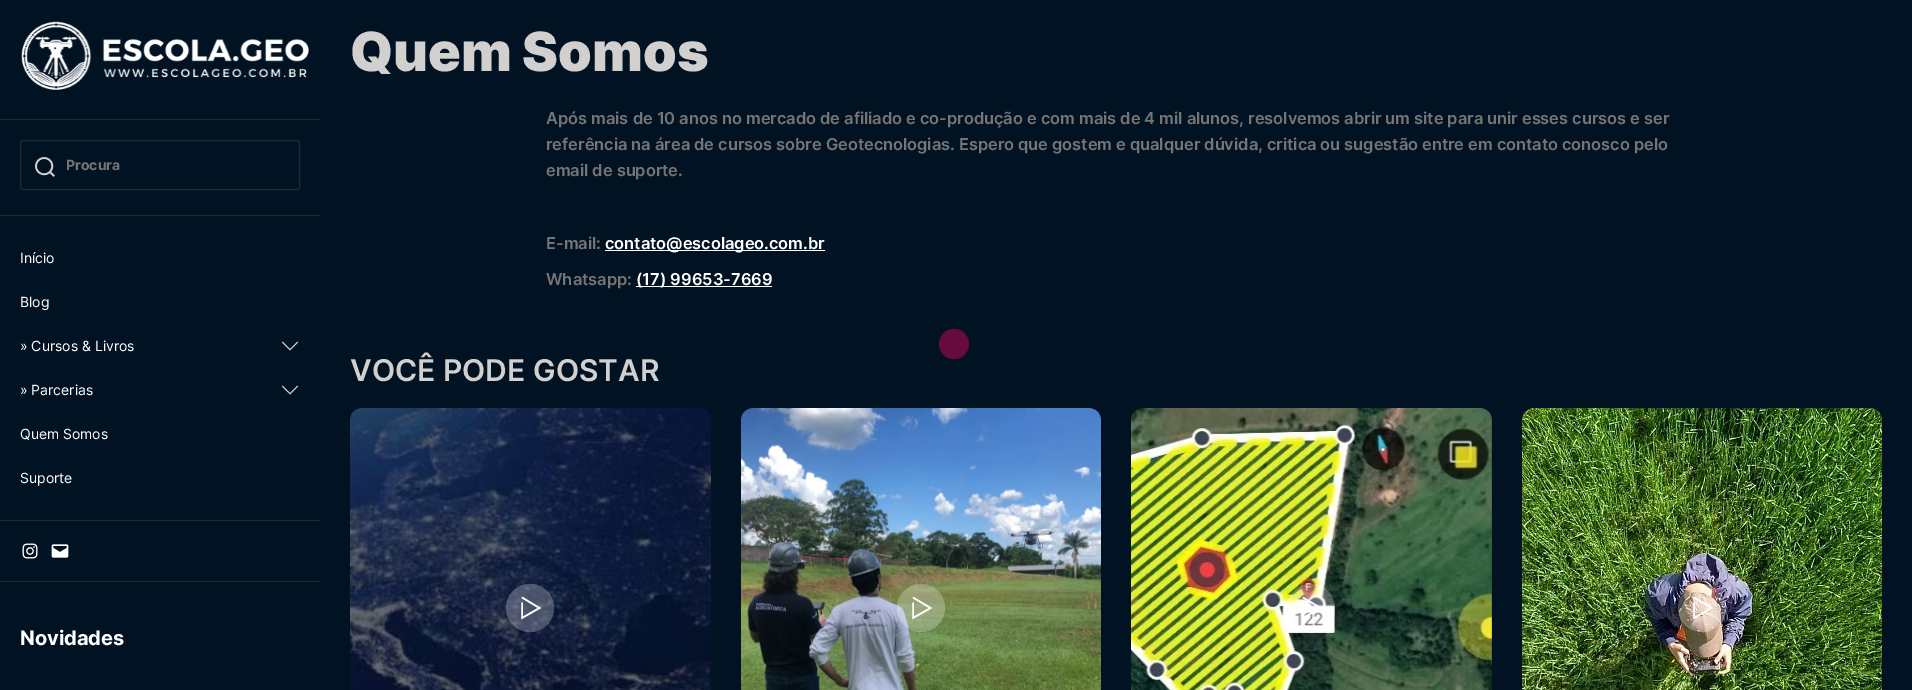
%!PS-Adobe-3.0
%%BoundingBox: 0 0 1912 690
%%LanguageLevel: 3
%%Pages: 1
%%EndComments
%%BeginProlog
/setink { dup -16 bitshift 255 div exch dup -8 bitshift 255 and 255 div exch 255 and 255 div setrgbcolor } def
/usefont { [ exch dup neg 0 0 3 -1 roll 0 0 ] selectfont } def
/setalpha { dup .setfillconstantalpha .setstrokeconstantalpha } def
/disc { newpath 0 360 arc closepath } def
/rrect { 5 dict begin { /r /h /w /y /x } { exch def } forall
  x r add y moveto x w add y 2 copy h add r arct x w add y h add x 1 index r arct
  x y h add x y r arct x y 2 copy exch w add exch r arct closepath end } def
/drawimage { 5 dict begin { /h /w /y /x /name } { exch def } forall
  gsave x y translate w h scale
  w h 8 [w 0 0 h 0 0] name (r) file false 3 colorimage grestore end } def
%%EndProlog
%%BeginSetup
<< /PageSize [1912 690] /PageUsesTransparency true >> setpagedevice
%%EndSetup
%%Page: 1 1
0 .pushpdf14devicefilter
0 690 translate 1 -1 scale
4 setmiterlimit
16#011323 setink
0 0 1912 690 rectfill
16#1A2B39 setink
0 119 320 1 rectfill
(img1.raw) 21 21 288 69 drawimage
0 215 320 1 rectfill
20.5 140.5 279 49 2.5 rrect stroke
(img2.raw) 35 157 20 20 drawimage
/Inter-Bold 14 usefont
16#757575 setink
66 170 moveto (Procura) show
16#1A2B39 setink
0 520 320 1 rectfill
/Inter-Regular 14 usefont
16#FFFFFF setink
[
    [(Início) 20 263]
    [(Blog) 20 307]
    [(» Cursos & Livros) 20 351]
] { aload pop moveto show } forall
(img3.raw) 281 341 18 10 drawimage
20 395 moveto (» Parcerias) show
(img3.raw) 281 385 18 10 drawimage
20 439 moveto (Quem Somos) show
20 483 moveto (Suporte) show
16#1A2B39 setink
0 581 320 1 rectfill
(img4.raw) 22 543 16 16 drawimage
(img5.raw) 51 544 18 14 drawimage
/Inter-Bold 20 usefont
16#FFFFFF setink
20 645 moveto (Novidades) show
/Inter-Black 54 usefont
16#D1D0CF setink
350 71 moveto (Quem Somos) show
/Inter-SemiBold 16.38 usefont
16#757575 setink
[
    [(Após mais de 10 anos no mercado de afiliado e co-produção e com mais de 4 mil alunos, resolvemos abrir um site para unir esses cursos e ser) 546 124]
    [(referência na área de cursos sobre Geotecnologias. Espero que gostem e qualquer dúvida, critica ou sugestão entre em contato conosco pelo) 546 150]
    [(email de suporte.) 546 176]
    [(E-mail:) 546 249]
] { aload pop moveto show } forall
16#FFFFFF setink
605 250 220 1 rectfill
605 249 moveto (contato@escolageo.com.br) show
16#757575 setink
546 285 moveto (Whatsapp:) show
16#FFFFFF setink
636 286 136 1 rectfill
636 285 moveto (\(17\) 99653-7669) show
/Inter-SemiBold 30 usefont
16#D1D0CF setink
350 381 moveto (VOCÊ PODE GOSTAR) show
(img6.raw) 350 408 361 282 drawimage
16#FFFFFF setink
1.6 setlinewidth
522 597.5 moveto 539.5 608 lineto 522 618 lineto 522 602.5 lineto stroke
0.25 setalpha
530 608 24 disc fill
1 setalpha
(img7.raw) 741 408 360 282 drawimage
913 597.5 moveto 930.5 608 lineto 913 618 lineto 913 602.5 lineto stroke
0.25 setalpha
921 608 24 disc fill
1 setalpha
(img8.raw) 1131 408 361 282 drawimage
1303 597.5 moveto 1320.5 608 lineto 1303 618 lineto 1303 602.5 lineto stroke
0.25 setalpha
1311 608 24 disc fill
1 setalpha
(img9.raw) 1522 408 360 282 drawimage
1694 597.5 moveto 1711.5 608 lineto 1694 618 lineto 1694 602.5 lineto stroke
0.25 setalpha
1702 608 24 disc fill
1 setalpha
16#670B3D setink
954 344 15 disc fill
.poppdf14devicefilter showpage
%%EOF
